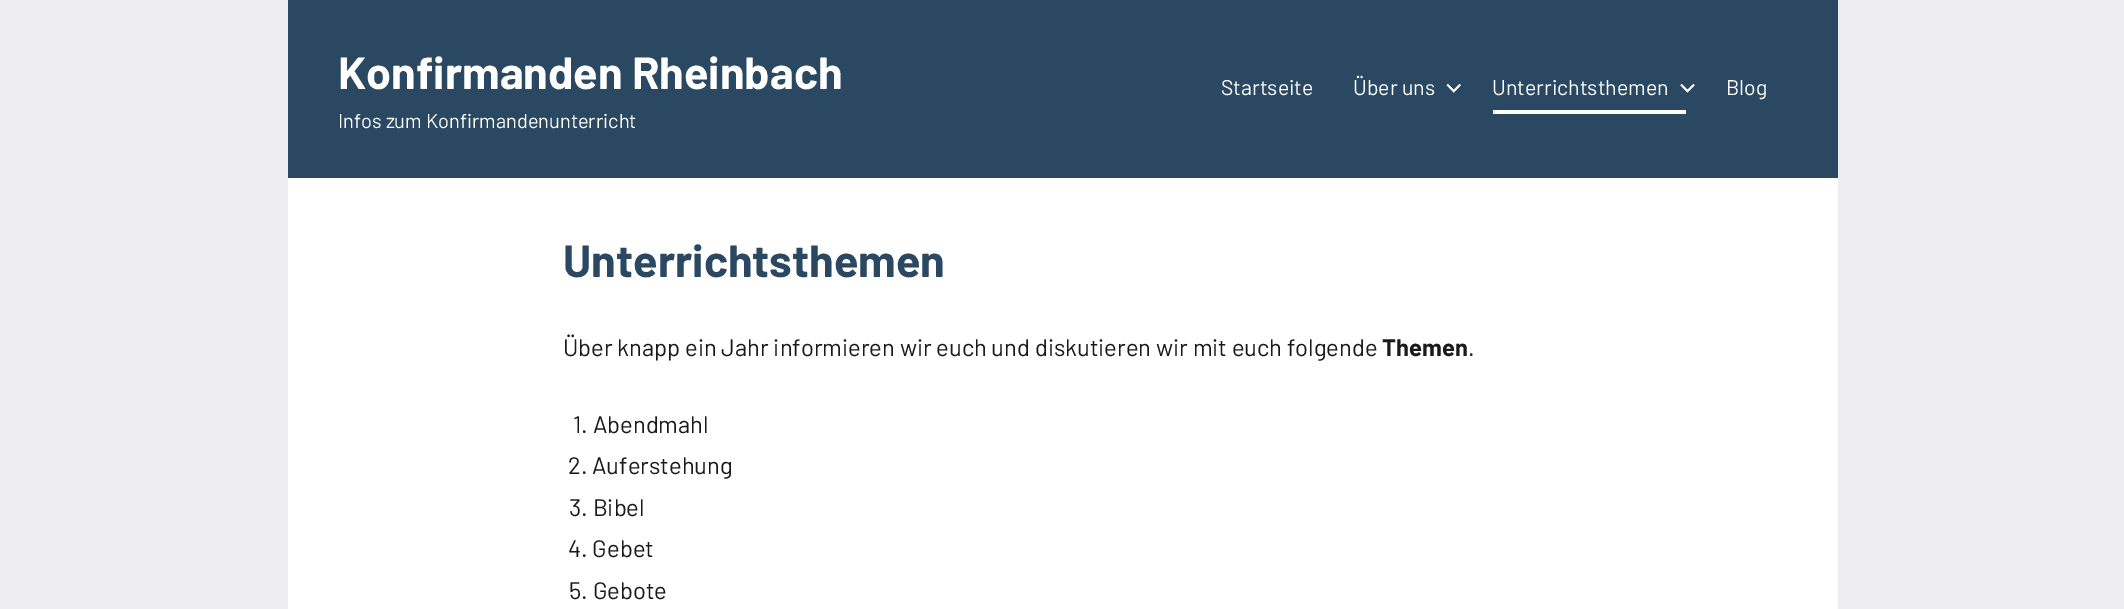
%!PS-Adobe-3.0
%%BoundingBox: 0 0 2124 609
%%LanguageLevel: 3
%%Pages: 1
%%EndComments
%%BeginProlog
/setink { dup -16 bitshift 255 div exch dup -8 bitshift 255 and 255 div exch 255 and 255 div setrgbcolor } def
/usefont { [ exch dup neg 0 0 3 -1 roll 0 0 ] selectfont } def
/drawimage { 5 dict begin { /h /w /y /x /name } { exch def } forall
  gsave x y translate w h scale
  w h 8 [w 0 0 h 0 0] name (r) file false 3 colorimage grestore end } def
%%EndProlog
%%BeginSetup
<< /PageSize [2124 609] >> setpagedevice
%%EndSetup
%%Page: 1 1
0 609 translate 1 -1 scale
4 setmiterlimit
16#EDEDEF setink
0 0 2124 609 rectfill
16#2A4861 setink
288 0 1550 178 rectfill
/Barlow-Bold 45 usefont
16#FFFFFF setink
338 89 moveto (Konfirmanden Rheinbach) show
/Barlow-Regular 20 usefont
338 128 moveto (Infos zum Konfirmandenunterricht) show
/Barlow-Regular 21.25 usefont
1221 95 moveto (Startseite) show
1353 95 moveto (Über uns) show
(img1.raw) 1446 83 15 10 drawimage
1493 110 193 4 rectfill
1492 95 moveto (Unterrichtsthemen) show
(img2.raw) 1680 83 15 10 drawimage
1726 95 moveto (Blog) show
288 178 1550 431 rectfill
/Barlow-Bold 45 usefont
16#2A4861 setink
563 277 moveto (Unterrichtsthemen) show
/Barlow-Regular 23.75 usefont
16#1A1A1A setink
563 356 moveto (Über knapp ein Jahr informieren wir euch und diskutieren wir mit euch folgende) show
/Barlow-Bold 23.75 usefont
1382 356 moveto (Themen) show
/Barlow-Regular 23.75 usefont
[
    [(.) 1468 356]
    [(1. Abendmahl) 573 433]
    [(2. Auferstehung) 568 474]
    [(3. Bibel) 569 516]
    [(4. Gebet) 568 557]
    [(5. Gebote) 569 599]
] { aload pop moveto show } forall
showpage
%%EOF
